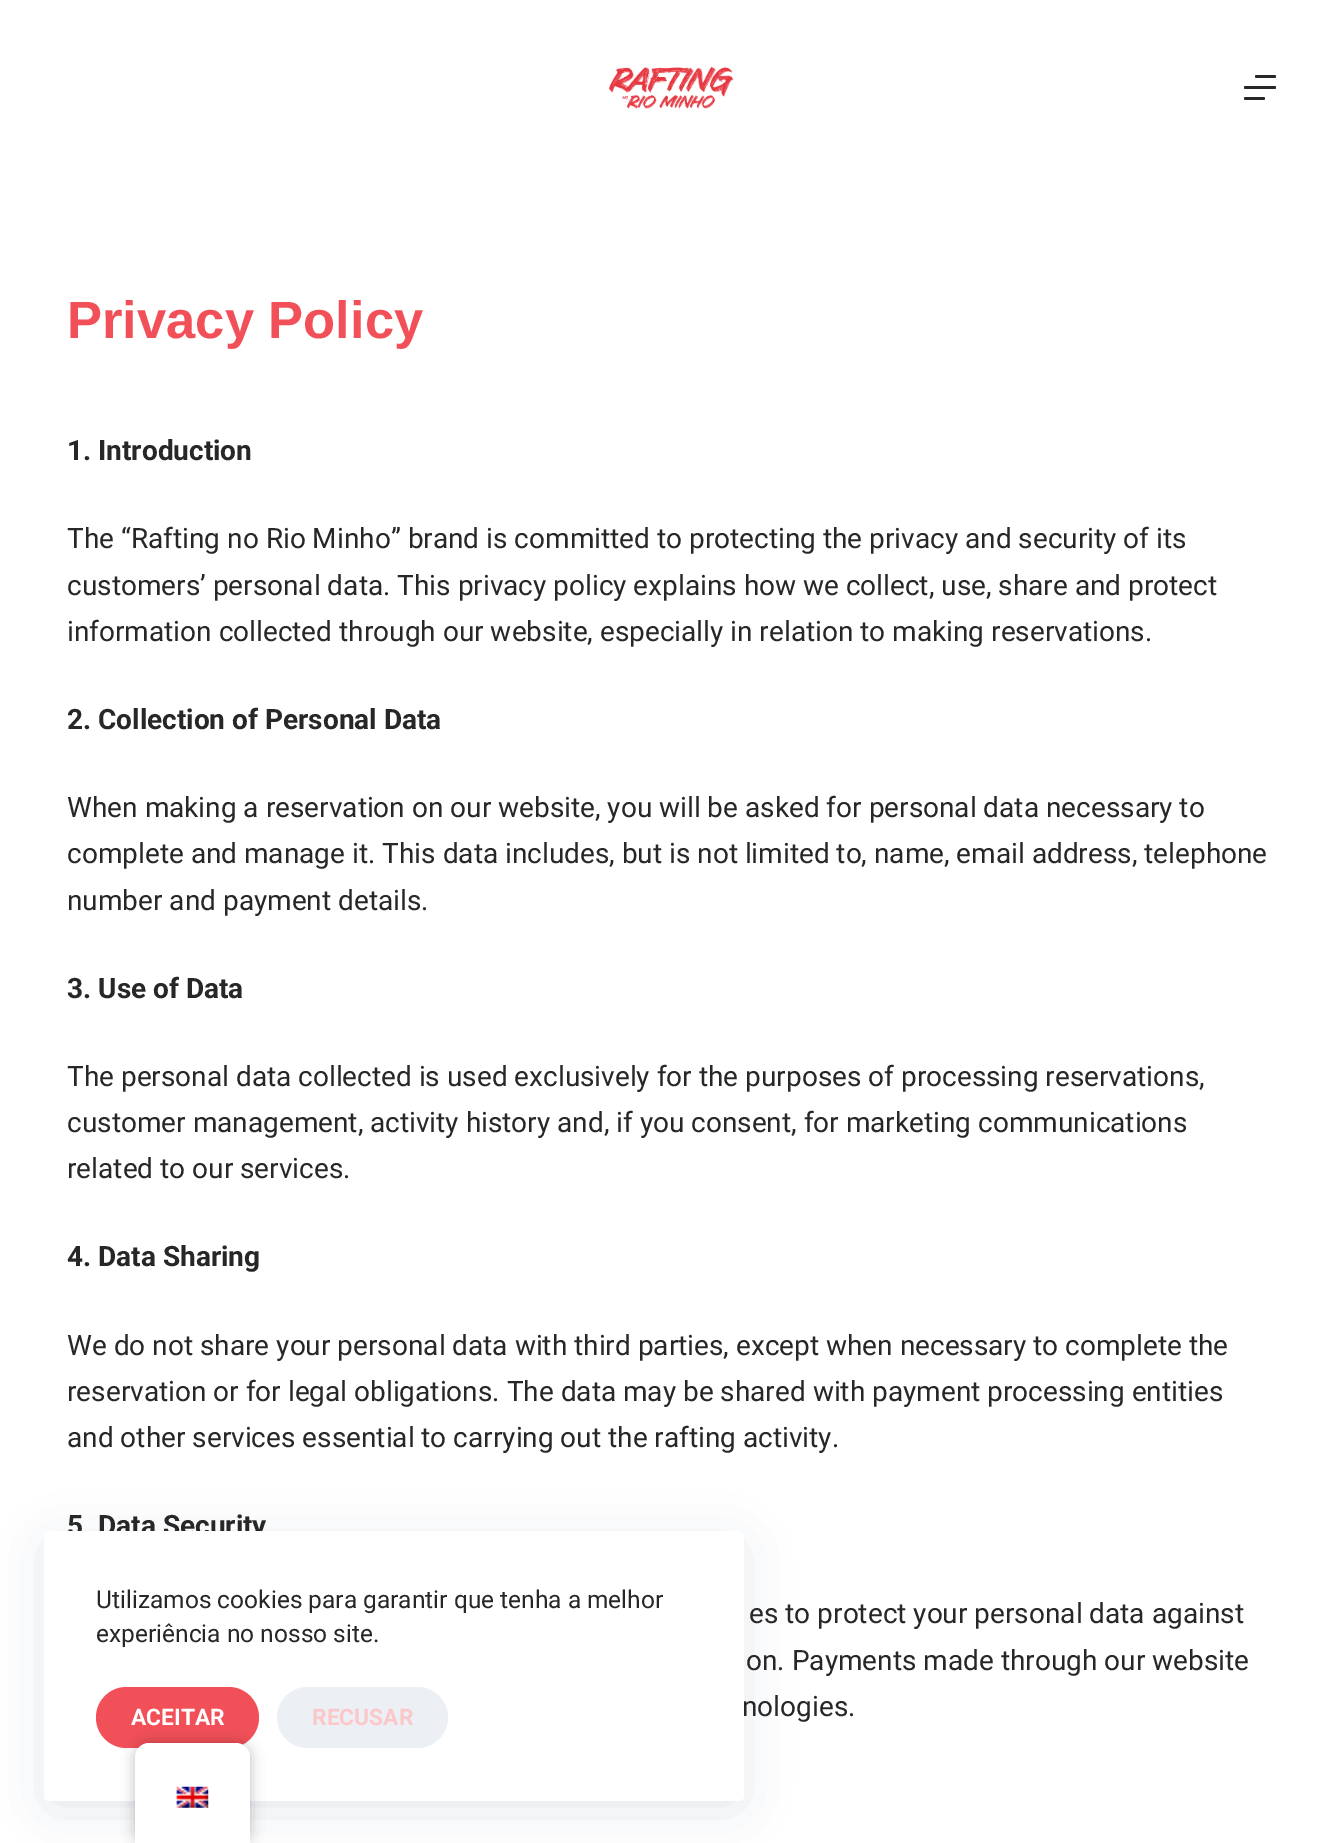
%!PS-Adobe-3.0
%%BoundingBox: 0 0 1341 1843
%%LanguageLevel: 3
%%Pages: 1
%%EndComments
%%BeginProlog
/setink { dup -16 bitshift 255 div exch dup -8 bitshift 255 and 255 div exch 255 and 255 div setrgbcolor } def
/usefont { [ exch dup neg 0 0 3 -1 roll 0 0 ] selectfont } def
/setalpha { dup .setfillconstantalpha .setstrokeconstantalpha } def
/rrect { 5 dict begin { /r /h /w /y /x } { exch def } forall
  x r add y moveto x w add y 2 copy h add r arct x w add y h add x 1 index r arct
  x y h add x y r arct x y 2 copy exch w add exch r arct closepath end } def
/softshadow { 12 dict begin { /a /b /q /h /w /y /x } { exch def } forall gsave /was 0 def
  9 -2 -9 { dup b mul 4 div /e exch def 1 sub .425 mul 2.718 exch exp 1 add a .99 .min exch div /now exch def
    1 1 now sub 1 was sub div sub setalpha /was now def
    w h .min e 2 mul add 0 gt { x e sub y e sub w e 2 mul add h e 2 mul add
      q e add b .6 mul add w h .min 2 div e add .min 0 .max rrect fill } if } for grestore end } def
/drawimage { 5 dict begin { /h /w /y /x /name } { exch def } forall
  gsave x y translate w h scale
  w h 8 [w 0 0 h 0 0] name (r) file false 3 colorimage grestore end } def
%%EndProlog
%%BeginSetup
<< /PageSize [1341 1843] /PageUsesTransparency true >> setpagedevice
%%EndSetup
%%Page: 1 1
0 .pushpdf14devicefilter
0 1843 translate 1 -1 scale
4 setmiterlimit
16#FFFFFF setink
0 0 1341 1843 rectfill
(img1.raw) 608 67 126 42 drawimage
16#272727 setink
1255 75 21 3 1.5 rrect fill
1244 86 32 3 1.5 rrect fill
1244 97 21 3 1.5 rrect fill
/LiberationSans-Bold 52.5 usefont
16#F25058 setink
67 338 moveto (Privacy Policy) show
/Roboto-Bold 28 usefont
16#272727 setink
67 460 moveto (1. Introduction) show
/Roboto-Regular 28 usefont
[
    [(The “Rafting no Rio Minho” brand is committed to protecting the privacy and security of its) 67 548]
    [(customers’ personal data. This privacy policy explains how we collect, use, share and protect) 67 595]
    [(information collected through our website, especially in relation to making reservations.) 67 641]
] { aload pop moveto show } forall
/Roboto-Bold 28 usefont
67 729 moveto (2. Collection of Personal Data) show
/Roboto-Regular 28 usefont
[
    [(When making a reservation on our website, you will be asked for personal data necessary to) 67 817]
    [(complete and manage it. This data includes, but is not limited to, name, email address, telephone) 67 863]
    [(number and payment details.) 67 910]
] { aload pop moveto show } forall
/Roboto-Bold 28 usefont
67 998 moveto (3. Use of Data) show
/Roboto-Regular 28 usefont
[
    [(The personal data collected is used exclusively for the purposes of processing reservations,) 67 1086]
    [(customer management, activity history and, if you consent, for marketing communications) 67 1132]
    [(related to our services.) 67 1178]
] { aload pop moveto show } forall
/Roboto-Bold 28 usefont
67 1266 moveto (4. Data Sharing) show
/Roboto-Regular 28 usefont
[
    [(We do not share your personal data with third parties, except when necessary to complete the) 67 1355]
    [(reservation or for legal obligations. The data may be shared with payment processing entities) 67 1401]
    [(and other services essential to carrying out the rafting activity.) 67 1447]
] { aload pop moveto show } forall
/Roboto-Bold 28 usefont
67 1535 moveto (5. Data Security) show
/Roboto-Regular 28 usefont
[
    [(es to protect your personal data against) 749 1623]
    [(on. Payments made through our website) 746 1670]
    [(nologies.) 742 1716]
] { aload pop moveto show } forall
16#223865 setink
53 1549 682 252 0 26 0.15 softshadow
16#FFFFFF setink
44 1531 700 270 5 rrect fill
/Roboto-Regular 24.5 usefont
16#272727 setink
96 1608 moveto (Utilizamos cookies para garantir que tenha a melhor) show
96 1642 moveto (experiência no nosso site.) show
16#F25058 setink
96 1687 163 61 30.5 rrect fill
/Roboto-Bold 22.75 usefont
16#FFFFFF setink
131 1725 moveto (ACEITAR) show
16#ECEFF3 setink
277 1687 171 61 30.5 rrect fill
16#FCC7C9 setink
312 1725 moveto (RECUSAR) show
16#000000 setink
135 1743 115 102 14 7 0.25 softshadow
16#FFFFFF setink
149 1743 moveto 236 1743 lineto 243.5 1743 250 1749.5 250 1757 curveto 250 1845 lineto 135 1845 lineto 135 1757 lineto 135 1749.5 141.5 1743 149 1743 curveto closepath fill
(img2.raw) 176 1786 33 22 drawimage
.poppdf14devicefilter showpage
%%EOF
